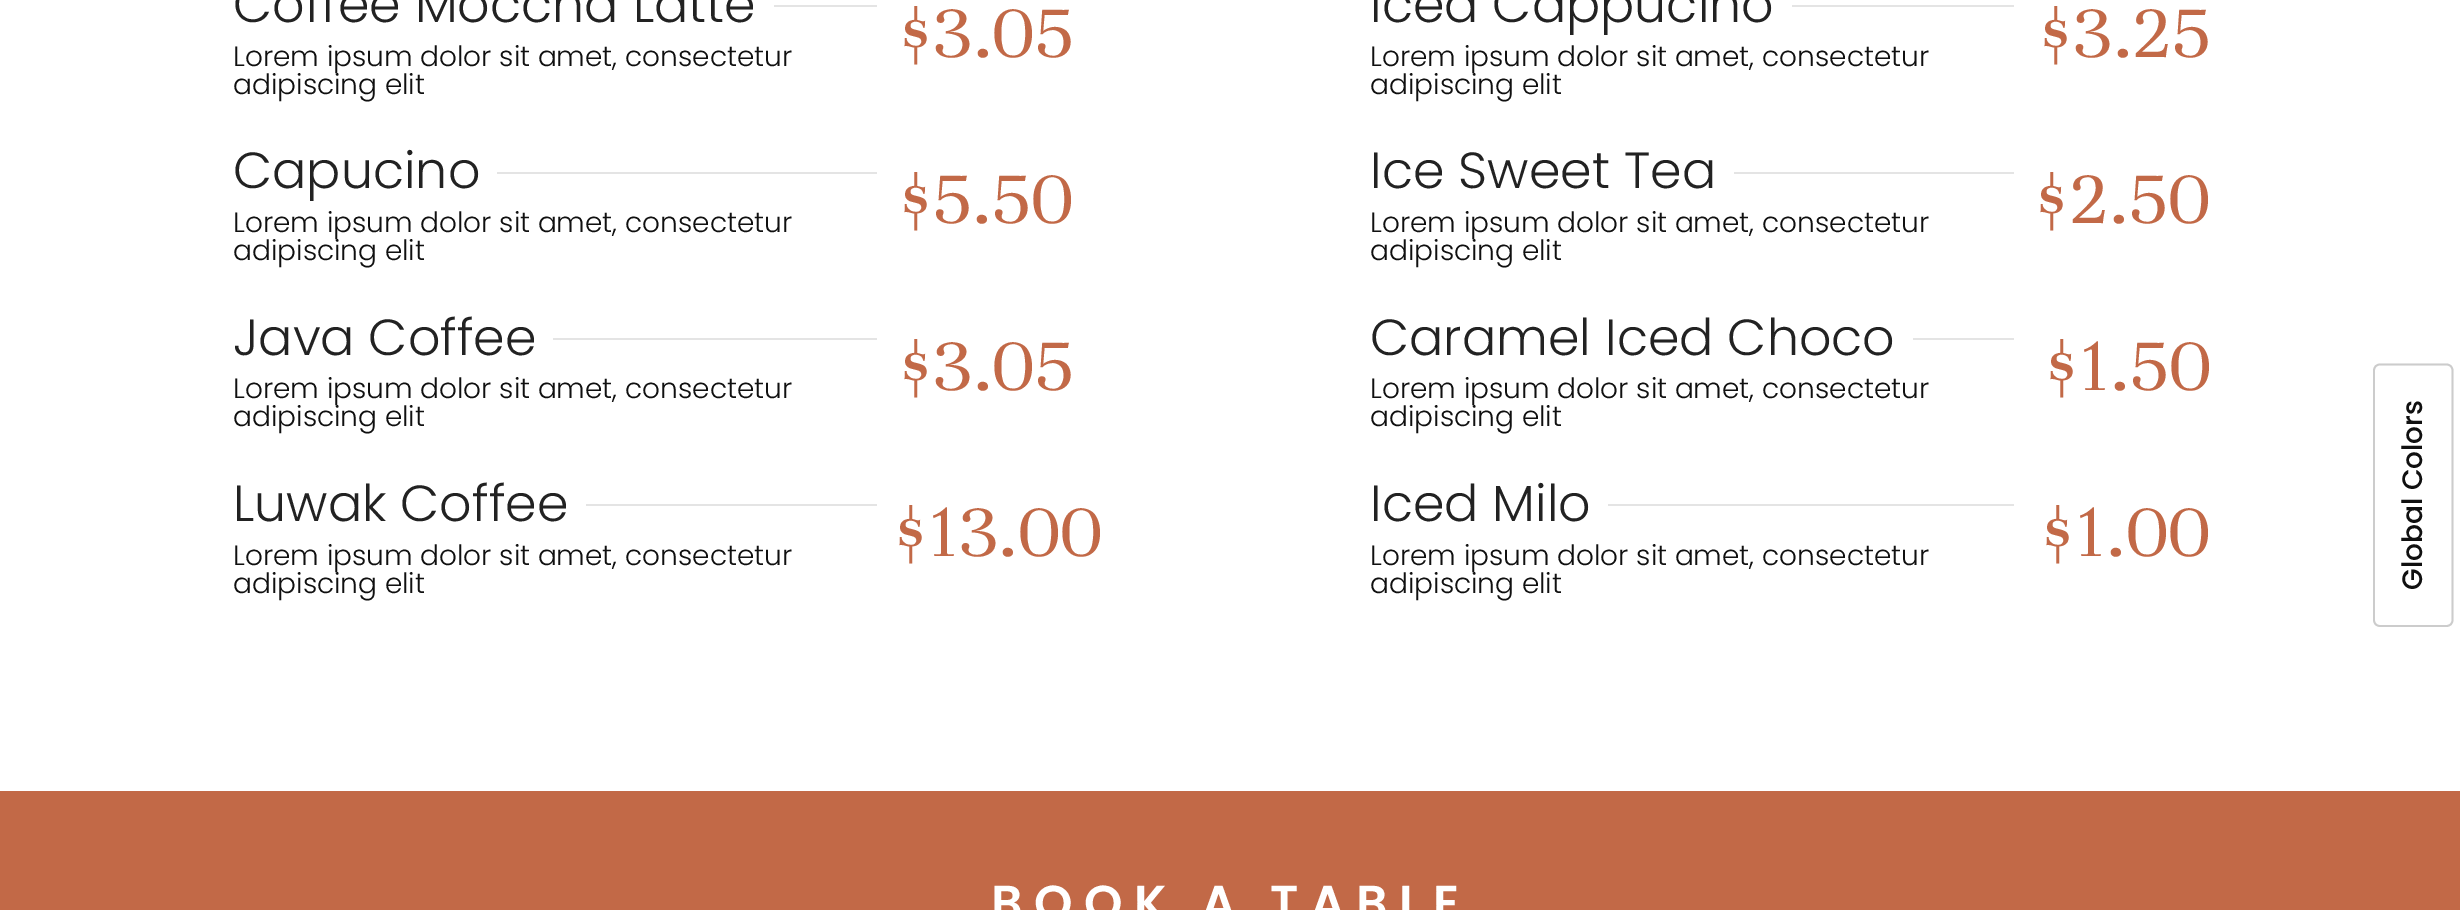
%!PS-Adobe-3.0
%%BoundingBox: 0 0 2460 910
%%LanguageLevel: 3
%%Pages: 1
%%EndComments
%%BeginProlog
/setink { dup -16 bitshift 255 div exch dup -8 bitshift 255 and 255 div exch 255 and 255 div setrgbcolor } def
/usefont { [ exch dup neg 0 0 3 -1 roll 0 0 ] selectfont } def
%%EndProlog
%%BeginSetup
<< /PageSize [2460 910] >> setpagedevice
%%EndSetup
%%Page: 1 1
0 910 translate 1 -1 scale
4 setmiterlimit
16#FFFFFF setink
0 0 2460 910 rectfill
/Poppins-Light 50.75 usefont
16#222222 setink
233 22 moveto (Coffee Moccha Latte) show
16#E4E4E4 setink
774 5 103 2 rectfill
/Poppins-Light 28 usefont
16#101010 setink
233 66 moveto (Lorem ipsum dolor sit amet, consectetur) show
233 94 moveto (adipiscing elit) show
/Unna-Regular 79 usefont
16#C26947 setink
898 57 moveto ($3.05) show
/Poppins-Light 50.75 usefont
16#222222 setink
233 188 moveto (Capucino) show
16#E4E4E4 setink
497 172 380 2 rectfill
/Poppins-Light 28 usefont
16#101010 setink
233 232 moveto (Lorem ipsum dolor sit amet, consectetur) show
233 260 moveto (adipiscing elit) show
/Unna-Regular 79 usefont
16#C26947 setink
898 223 moveto ($5.50) show
/Poppins-Light 50.75 usefont
16#222222 setink
233 355 moveto (Java Coffee) show
16#E4E4E4 setink
553 338 324 2 rectfill
/Poppins-Light 28 usefont
16#101010 setink
233 398 moveto (Lorem ipsum dolor sit amet, consectetur) show
233 426 moveto (adipiscing elit) show
/Unna-Regular 79 usefont
16#C26947 setink
898 390 moveto ($3.05) show
/Poppins-Light 50.75 usefont
16#222222 setink
233 521 moveto (Luwak Coffee) show
16#E4E4E4 setink
586 504 291 2 rectfill
/Poppins-Light 28 usefont
16#101010 setink
233 565 moveto (Lorem ipsum dolor sit amet, consectetur) show
233 593 moveto (adipiscing elit) show
/Unna-Regular 79 usefont
16#C26947 setink
893 556 moveto ($13.00) show
/Poppins-Light 50.75 usefont
16#222222 setink
1370 22 moveto (Iced Cappucino) show
16#E4E4E4 setink
1792 5 222 2 rectfill
/Poppins-Light 28 usefont
16#101010 setink
1370 66 moveto (Lorem ipsum dolor sit amet, consectetur) show
1370 94 moveto (adipiscing elit) show
/Unna-Regular 79 usefont
16#C26947 setink
2038 57 moveto ($3.25) show
/Poppins-Light 50.75 usefont
16#222222 setink
1370 188 moveto (Ice Sweet Tea) show
16#E4E4E4 setink
1734 172 280 2 rectfill
/Poppins-Light 28 usefont
16#101010 setink
1370 232 moveto (Lorem ipsum dolor sit amet, consectetur) show
1370 260 moveto (adipiscing elit) show
/Unna-Regular 79 usefont
16#C26947 setink
2034 223 moveto ($2.50) show
/Poppins-Light 50.75 usefont
16#222222 setink
1370 355 moveto (Caramel Iced Choco) show
16#E4E4E4 setink
1913 338 101 2 rectfill
/Poppins-Light 28 usefont
16#101010 setink
1370 398 moveto (Lorem ipsum dolor sit amet, consectetur) show
1370 426 moveto (adipiscing elit) show
/Unna-Regular 79 usefont
16#C26947 setink
2044 390 moveto ($1.50) show
/Poppins-Light 50.75 usefont
16#222222 setink
1370 521 moveto (Iced Milo) show
16#E4E4E4 setink
1608 504 406 2 rectfill
/Poppins-Light 28 usefont
16#101010 setink
1370 565 moveto (Lorem ipsum dolor sit amet, consectetur) show
1370 593 moveto (adipiscing elit) show
/Unna-Regular 79 usefont
16#C26947 setink
2040 556 moveto ($1.00) show
0 791 2460 119 rectfill
/Poppins-SemiBold 49 usefont
16#FFFFFF setink
991 920 moveto 11.4 0 (BOOK A TABLE) ashow
16#CCCCCC setink
1.8 setlinewidth
2374 620 moveto 2374 370.5 lineto 2374 367 2376.5 364.5 2380 364.5 curveto 2446.5 364.5 lineto 2450 364.5 2452.5 367 2452.5 370.5 curveto 2452.5 620 lineto 2452.5 623.5 2450 626 2446.5 626 curveto 2380 626 lineto 2376.5 626 2374 623.5 2374 620 curveto closepath stroke
/Poppins-Medium 28 usefont
16#101010 setink
gsave 2422 590 translate -90 rotate 0 0 moveto (Global Colors) show grestore
showpage
%%EOF
